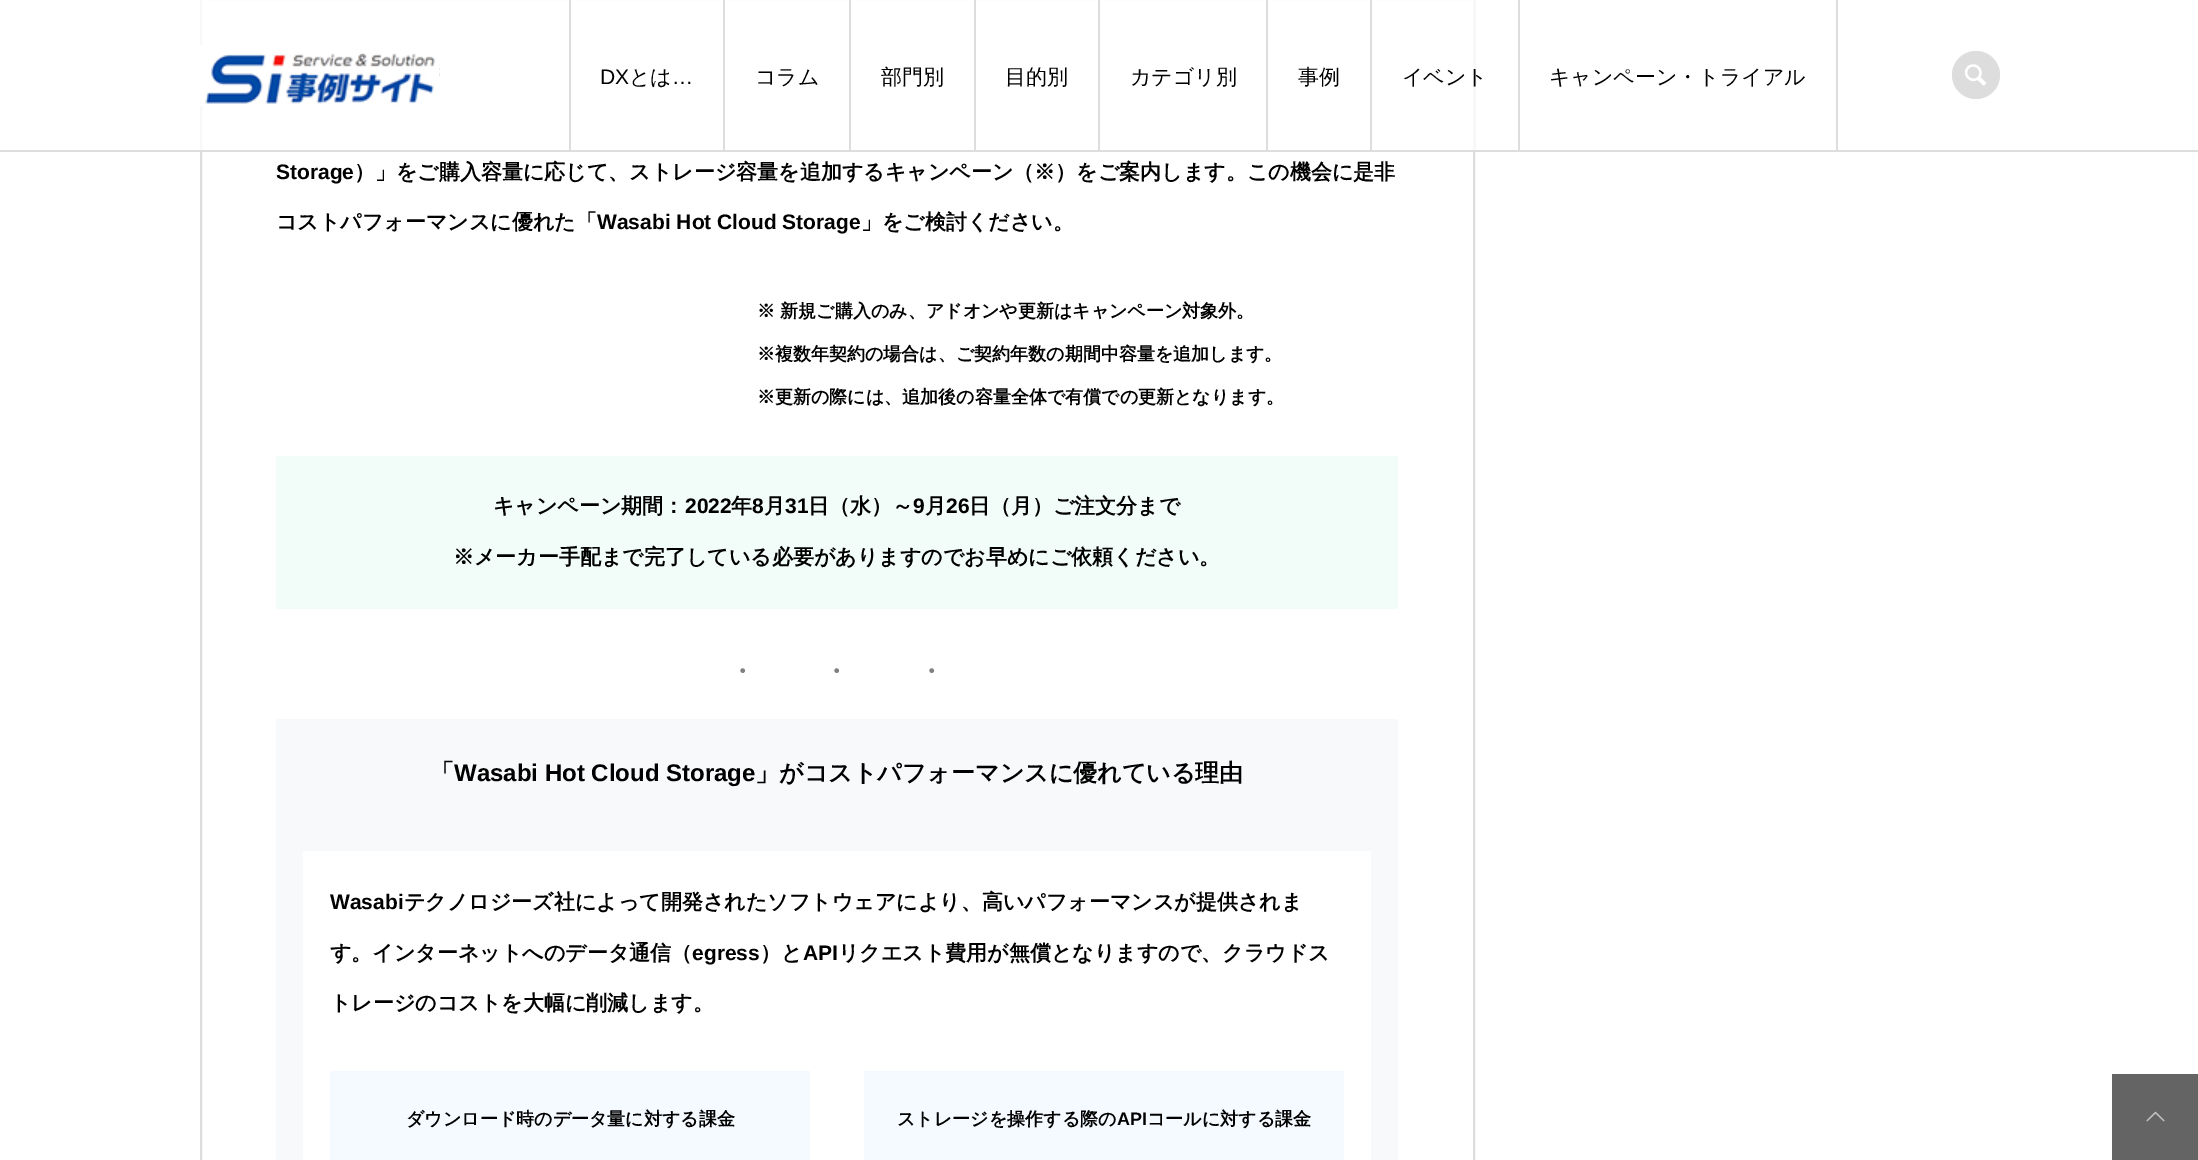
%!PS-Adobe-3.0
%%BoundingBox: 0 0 2198 1160
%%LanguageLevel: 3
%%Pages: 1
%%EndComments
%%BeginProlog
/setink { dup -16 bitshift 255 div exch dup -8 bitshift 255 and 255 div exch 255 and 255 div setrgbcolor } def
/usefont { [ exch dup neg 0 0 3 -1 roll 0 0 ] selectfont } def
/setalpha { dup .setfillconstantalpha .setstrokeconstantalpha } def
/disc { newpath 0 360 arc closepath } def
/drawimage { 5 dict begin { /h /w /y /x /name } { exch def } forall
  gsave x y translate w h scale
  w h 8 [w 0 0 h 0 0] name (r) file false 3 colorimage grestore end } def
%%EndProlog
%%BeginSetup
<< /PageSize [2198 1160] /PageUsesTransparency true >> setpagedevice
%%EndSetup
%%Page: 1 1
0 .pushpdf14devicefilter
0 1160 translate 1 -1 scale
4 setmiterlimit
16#FFFFFF setink
0 0 2198 1160 rectfill
16#DDDDDD setink
2 setlinewidth
201 -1 1273 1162 rectstroke
0.8 setalpha
16#FFFFFF setink
200 0 1275 150 rectfill
1 setalpha
16#DDDDDD setink
0 150 2198 2 rectfill
(img1.raw) 200 45 240 61 drawimage
569 0 2 150 rectfill
723 0 2 152 rectfill
/LiberationSans-Regular 21 usefont
16#000000 setink
600 84 moveto (DX) show
/WenQuanYiZenHei-Medium 21 usefont
629 84 moveto (とは) show
/LiberationSans-Regular 21 usefont
672 84 moveto (…) show
16#DDDDDD setink
849 0 2 152 rectfill
/WenQuanYiZenHei-Medium 21 usefont
16#000000 setink
755 84 moveto (コラム) show
16#DDDDDD setink
974 0 2 152 rectfill
16#000000 setink
881 84 moveto (部門別) show
16#DDDDDD setink
1098 0 2 152 rectfill
16#000000 setink
1005 84 moveto (目的別) show
16#DDDDDD setink
1266 0 2 152 rectfill
16#000000 setink
1130 84 moveto (カテゴリ別) show
16#DDDDDD setink
1370 0 2 152 rectfill
16#000000 setink
1298 84 moveto (事例) show
16#DDDDDD setink
1518 0 2 152 rectfill
16#000000 setink
1402 84 moveto (イベント) show
16#DDDDDD setink
1836 0 2 152 rectfill
16#000000 setink
1549 84 moveto (キャンペーン・トライアル) show
16#DDDDDD setink
1976 75 24 disc fill
(img2.raw) 1964 64 22 22 drawimage
/LiberationSans-Bold 21 usefont
16#000000 setink
276 179 moveto (Storage) show
/WenQuanYiZenHei-Bold 21 usefont
354 179 moveto (）」をご購入容量に応じて、ストレージ容量を追加するキャンペーン（※）をご案内します。この機会に是非) show
276 229 moveto (コストパフォーマンスに優れた「) show
/LiberationSans-Bold 21 usefont
597 229 moveto (Wasabi Hot Cloud Storage) show
/WenQuanYiZenHei-Bold 21 usefont
861 229 moveto (」をご検討ください。) show
/WenQuanYiZenHei-Bold 18 usefont
[
    [(※ 新規ご購入のみ、アドオンや更新はキャンペーン対象外。) 757 317]
    [(※複数年契約の場合は、ご契約年数の期間中容量を追加します。) 757 360]
    [(※更新の際には、追加後の容量全体で有償での更新となります。) 757 403]
] { aload pop moveto show } forall
16#F2FCF8 setink
276 456 1122 153 rectfill
/WenQuanYiZenHei-Bold 21 usefont
16#000000 setink
493 513 moveto (キャンペーン期間：) show
/LiberationSans-Bold 21 usefont
685 513 moveto (2022) show
/WenQuanYiZenHei-Bold 21 usefont
731 513 moveto (年) show
/LiberationSans-Bold 21 usefont
752 513 moveto (8) show
/WenQuanYiZenHei-Bold 21 usefont
764 513 moveto (月) show
/LiberationSans-Bold 21 usefont
785 513 moveto (31) show
/WenQuanYiZenHei-Bold 21 usefont
808 513 moveto (日（水）～) show
/LiberationSans-Bold 21 usefont
913 513 moveto (9) show
/WenQuanYiZenHei-Bold 21 usefont
925 513 moveto (月) show
/LiberationSans-Bold 21 usefont
946 513 moveto (26) show
/WenQuanYiZenHei-Bold 21 usefont
969 513 moveto (日（月）ご注文分まで) show
453 564 moveto (※メーカー手配まで完了している必要がありますのでお早めにご依頼ください。) show
/LiberationSerif-Regular 40.5 usefont
16#808080 setink
736 684 moveto 81 0 (···) ashow
16#F7F9FA setink
276 719 1122 441 rectfill
/WenQuanYiZenHei-Bold 24 usefont
16#000000 setink
430 781 moveto (「) show
/LiberationSans-Bold 24 usefont
454 781 moveto (Wasabi Hot Cloud Storage) show
/WenQuanYiZenHei-Bold 24 usefont
755 781 moveto (」がコストパフォーマンスに優れている理由) show
16#FFFFFF setink
303 851 1068 309 rectfill
/LiberationSans-Bold 21 usefont
16#000000 setink
330 909 moveto (Wasabi) show
/WenQuanYiZenHei-Bold 21 usefont
404 909 moveto (テクノロジーズ社によって開発されたソフトウェアにより、高いパフォーマンスが提供されま) show
330 960 moveto (す。インターネットへのデータ通信（) show
/LiberationSans-Bold 21 usefont
692 960 moveto (egress) show
/WenQuanYiZenHei-Bold 21 usefont
760 960 moveto (）と) show
/LiberationSans-Bold 21 usefont
803 960 moveto (API) show
/WenQuanYiZenHei-Bold 21 usefont
838 960 moveto (リクエスト費用が無償となりますので、クラウドス) show
330 1010 moveto (トレージのコストを大幅に削減します。) show
16#F4FAFF setink
330 1071 480 89 rectfill
/WenQuanYiZenHei-Bold 18 usefont
16#000000 setink
406 1125 moveto (ダウンロード時のデータ量に対する課金) show
16#F4FAFF setink
864 1071 480 89 rectfill
16#000000 setink
897 1125 moveto (ストレージを操作する際の) show
/LiberationSans-Bold 18 usefont
1117 1125 moveto (API) show
/WenQuanYiZenHei-Bold 18 usefont
1147 1125 moveto (コールに対する課金) show
16#646464 setink
2112 1074 86 86 rectfill
(img3.raw) 2146 1111 19 11 drawimage
.poppdf14devicefilter showpage
%%EOF
